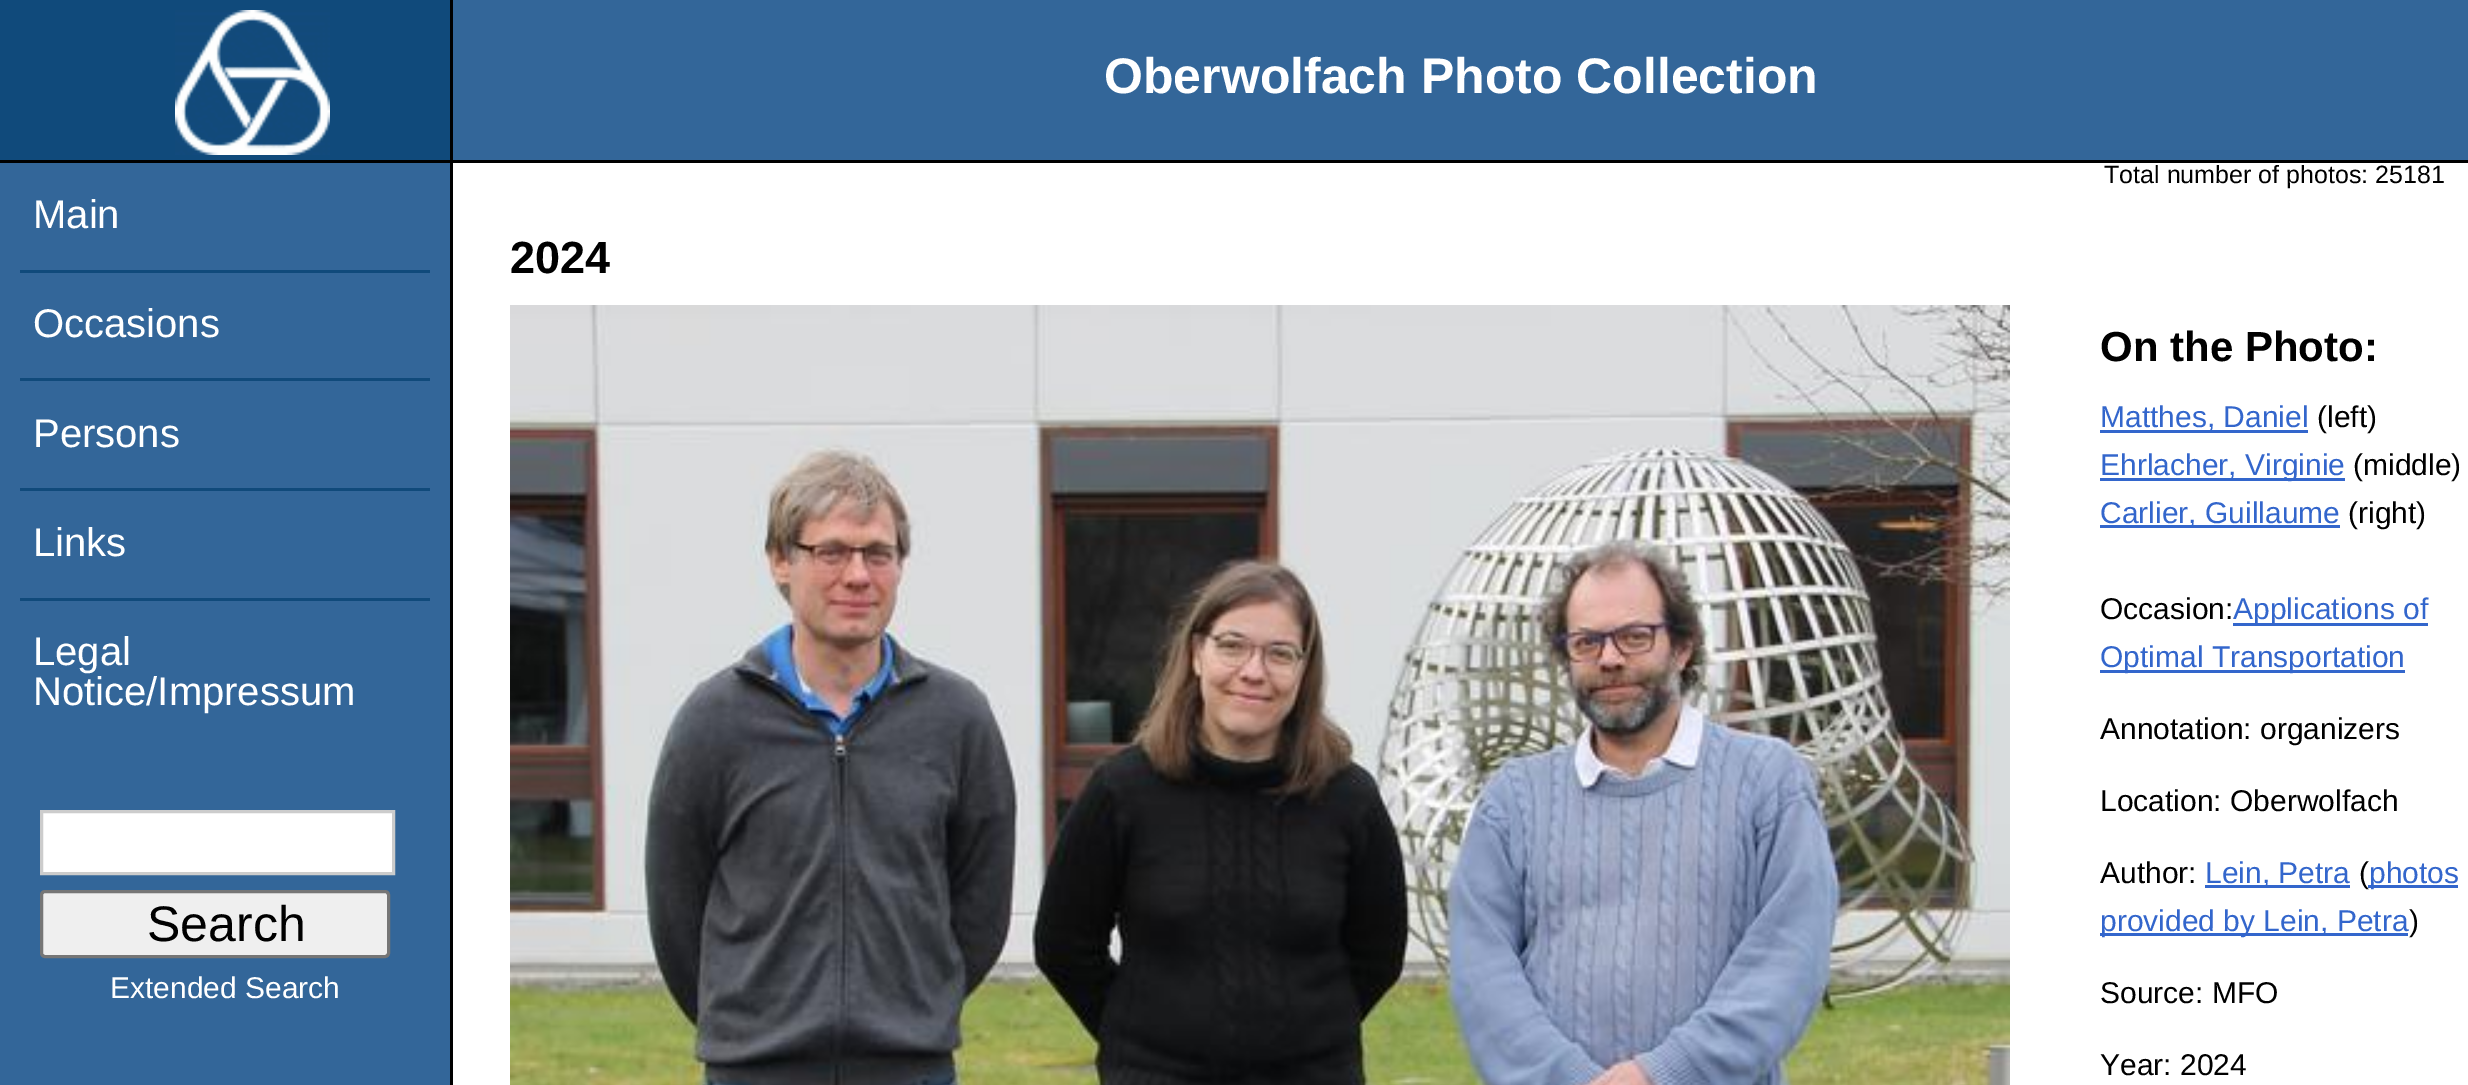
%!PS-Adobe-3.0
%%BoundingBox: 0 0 2468 1085
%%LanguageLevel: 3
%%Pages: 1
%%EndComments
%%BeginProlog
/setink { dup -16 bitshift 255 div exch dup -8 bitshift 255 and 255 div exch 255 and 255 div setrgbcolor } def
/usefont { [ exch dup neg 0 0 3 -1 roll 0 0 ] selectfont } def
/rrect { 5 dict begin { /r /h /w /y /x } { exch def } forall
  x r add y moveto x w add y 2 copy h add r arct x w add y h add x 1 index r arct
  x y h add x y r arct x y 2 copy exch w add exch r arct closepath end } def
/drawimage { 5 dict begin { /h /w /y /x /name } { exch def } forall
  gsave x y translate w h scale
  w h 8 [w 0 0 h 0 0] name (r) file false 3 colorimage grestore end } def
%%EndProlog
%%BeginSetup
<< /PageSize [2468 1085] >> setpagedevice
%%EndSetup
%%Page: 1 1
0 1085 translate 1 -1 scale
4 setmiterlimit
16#FFFFFF setink
0 0 2468 1085 rectfill
[
    [453 0 2015 160 16#336699]
    [0 160 2468 3 16#000000]
    [0 0 450 160 16#104A7B]
    [450 0 3 160 16#000000]
] { aload pop setink rectfill } forall
(img1.raw) 175 10 155 145 drawimage
/LiberationSans-Bold 50 usefont
16#FFFFFF setink
1104 93 moveto (Oberwolfach Photo Collection) show
/LiberationSans-Regular 25 usefont
16#000000 setink
2104 183 moveto (Total number of photos: 25181) show
16#336699 setink
0 163 450 922 rectfill
16#000000 setink
450 163 3 922 rectfill
/LiberationSans-Regular 40 usefont
16#FFFFFF setink
33 228 moveto (Main) show
16#104A7B setink
20 270 410 3 rectfill
16#FFFFFF setink
33 337 moveto (Occasions) show
16#104A7B setink
20 378 410 3 rectfill
16#FFFFFF setink
33 447 moveto (Persons) show
16#104A7B setink
20 488 410 3 rectfill
16#FFFFFF setink
33 556 moveto (Links) show
16#104A7B setink
20 598 410 3 rectfill
16#FFFFFF setink
33 665 moveto (Legal) show
33 705 moveto (Notice/Impressum) show
41.5 811.5 moveto 393.5 811.5 lineto 393.5 873.5 lineto 41.5 873.5 lineto closepath gsave fill grestore
16#CCCCCC setink
3 setlinewidth
stroke
16#EFEFEF setink
41.5 891.5 347 65 3.5 rrect gsave fill grestore
16#767676 setink
stroke
/LiberationSans-Regular 50 usefont
16#000000 setink
147 941 moveto (Search) show
/LiberationSans-Regular 30 usefont
16#FFFFFF setink
110 998 moveto (Extended Search) show
/LiberationSans-Bold 45 usefont
16#000000 setink
510 273 moveto (2024) show
(img2.raw) 510 305 1500 780 drawimage
/LiberationSans-Bold 42 usefont
2100 361 moveto (On the Photo:) show
16#3366CC setink
2100 430 208 3 rectfill
/LiberationSans-Regular 30 usefont
2100 427 moveto (Matthes, Daniel) show
16#000000 setink
2317 427 moveto (\(left\)) show
16#3366CC setink
2100 478 245 3 rectfill
2100 475 moveto (Ehrlacher, Virginie) show
16#000000 setink
2353 475 moveto (\(middle\)) show
16#3366CC setink
2100 525 240 3 rectfill
2100 523 moveto (Carlier, Guillaume) show
16#000000 setink
2348 523 moveto (\(right\)) show
2100 619 moveto (Occasion:) show
16#3366CC setink
2233 623 195 3 rectfill
2233 619 moveto (Applications of) show
2100 670 305 3 rectfill
2100 667 moveto (Optimal Transportation) show
16#000000 setink
[
    [(Annotation: organizers) 2100 739]
    [(Location: Oberwolfach) 2100 811]
    [(Author:) 2100 883]
] { aload pop moveto show } forall
16#3366CC setink
2205 885 145 3 rectfill
2205 883 moveto (Lein, Petra) show
16#000000 setink
2359 883 moveto (\() show
16#3366CC setink
2368 885 90 3 rectfill
2369 883 moveto (photos) show
2100 933 308 3 rectfill
2100 931 moveto (provided by Lein, Petra) show
16#000000 setink
[
    [(\)) 2409 931]
    [(Source: MFO) 2100 1003]
    [(Year: 2024) 2100 1075]
] { aload pop moveto show } forall
showpage
%%EOF
